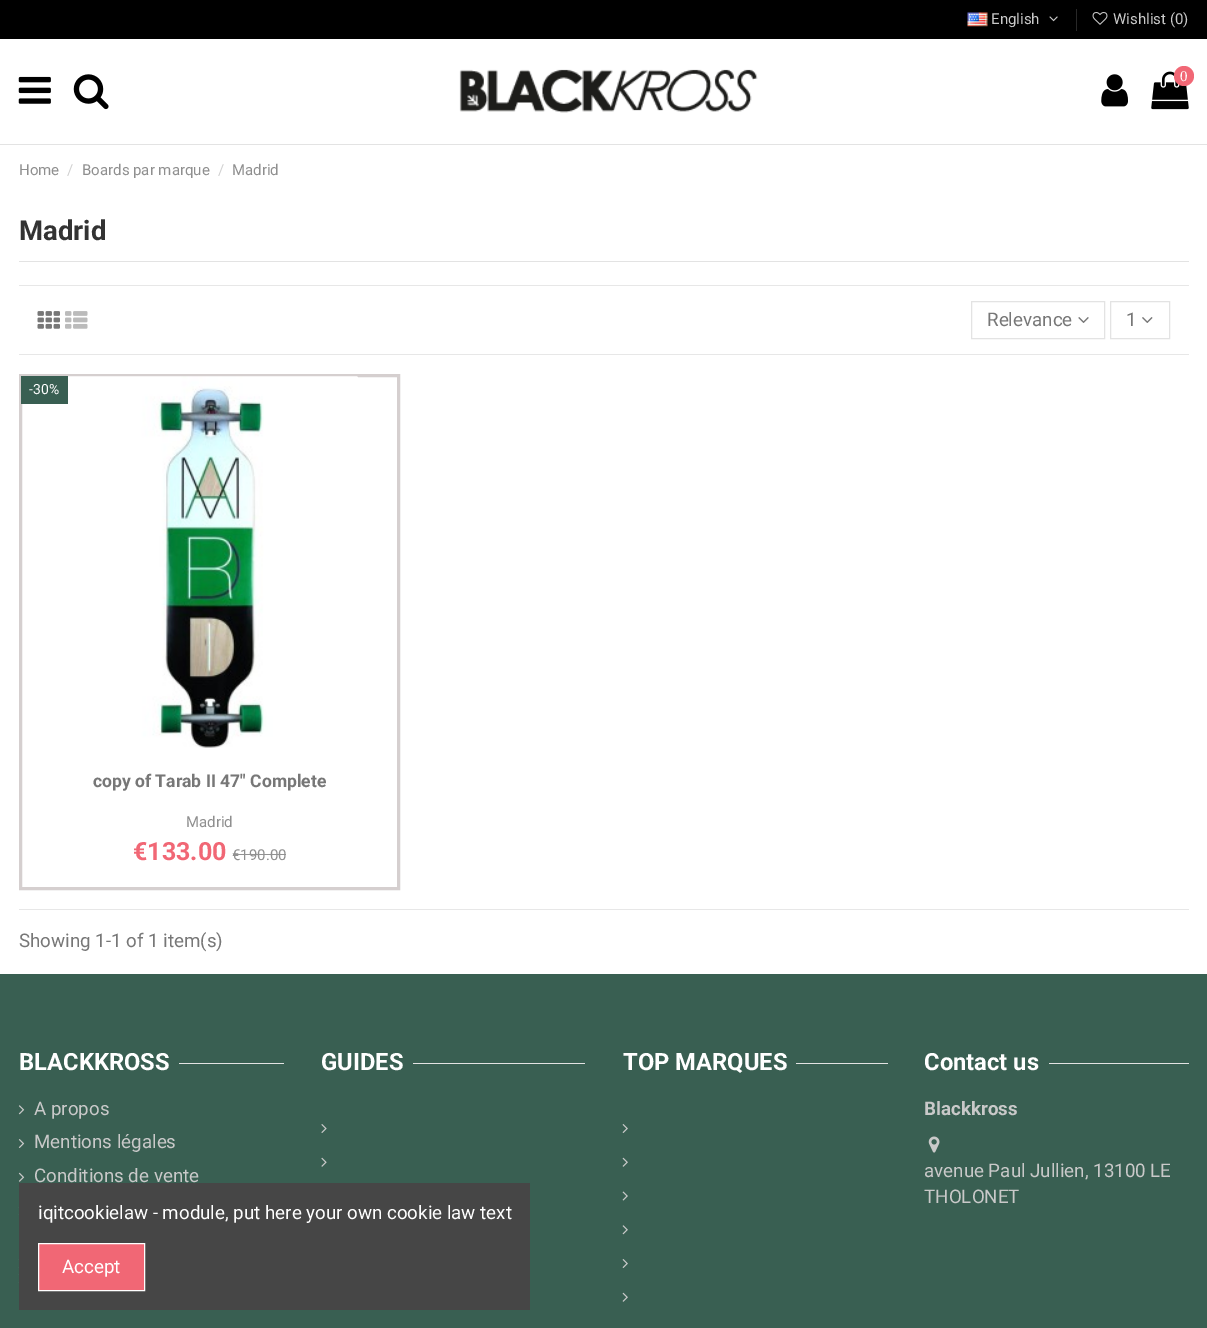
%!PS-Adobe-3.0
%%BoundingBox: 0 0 1207 1328
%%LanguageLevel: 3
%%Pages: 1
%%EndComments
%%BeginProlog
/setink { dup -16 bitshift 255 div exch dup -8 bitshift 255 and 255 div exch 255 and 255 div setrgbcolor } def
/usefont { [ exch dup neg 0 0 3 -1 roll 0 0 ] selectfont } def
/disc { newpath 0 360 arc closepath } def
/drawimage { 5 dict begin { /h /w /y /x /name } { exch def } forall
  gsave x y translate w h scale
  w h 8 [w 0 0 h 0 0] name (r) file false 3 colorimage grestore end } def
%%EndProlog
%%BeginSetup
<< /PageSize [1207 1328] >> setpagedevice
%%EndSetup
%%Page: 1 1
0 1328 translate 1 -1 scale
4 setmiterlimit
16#FFFFFF setink
0 0 1207 1328 rectfill
16#000000 setink
0 0 1207 39 rectfill
(img1.raw) 967 12 21 15 drawimage
/Roboto-Regular 15 usefont
16#C9C9C9 setink
991 24 moveto (English) show
(img2.raw) 1049 16 9 6 drawimage
16#282828 setink
1076 9 1 22 rectfill
(img3.raw) 1092 12 16 13 drawimage
16#C9C9C9 setink
1113 24 moveto (Wishlist \(0\)) show
16#E3E3E3 setink
0 144 1207 1 rectfill
(img4.raw) 18 76 33 28 drawimage
(img5.raw) 73 74 36 36 drawimage
(img6.raw) 459 69 299 44 drawimage
(img7.raw) 1101 74 27 33 drawimage
(img8.raw) 1151 71 38 39 drawimage
16#F16775 setink
1184 76 10 disc fill
/LiberationSerif-Regular 15 usefont
16#FFFFFF setink
1180 81 moveto (0) show
/Roboto-Regular 15 usefont
16#8F8F8F setink
19 175 moveto (Home) show
16#D2D2D2 setink
67 175 moveto (/) show
16#8F8F8F setink
82 175 moveto (Boards par marque) show
16#D2D2D2 setink
218 175 moveto (/) show
16#8F8F8F setink
232 175 moveto (Madrid) show
16#E3E3E3 setink
19 261 1170 1 rectfill
/Roboto-Bold 27.5 usefont
16#333333 setink
19 240 moveto (Madrid) show
16#E7E7E7 setink
19 285 1170 1 rectfill
19 354 1170 1 rectfill
(img9.raw) 37 311 23 18 drawimage
(img10.raw) 65 311 23 18 drawimage
16#E3E3E3 setink
971.5 301.5 133 37 rectstroke
/Roboto-Regular 18.75 usefont
16#777777 setink
987 326 moveto (Relevance) show
(img11.raw) 1078 317 11 6 drawimage
16#E3E3E3 setink
1110.5 301.5 59 37 rectstroke
16#777777 setink
1126 326 moveto (1) show
(img12.raw) 1142 317 11 6 drawimage
16#D5CFCF setink
3 setlinewidth
20.5 375.5 378 513 rectstroke
(img13.raw) 62 376 296 372 drawimage
16#395F52 setink
21 376 47 28 rectfill
/Roboto-Regular 14 usefont
16#FFFFFF setink
29 394 moveto (-30%) show
/Roboto-Bold 17.5 usefont
16#777777 setink
93 787 moveto (copy of Tarab II 47" Complete) show
/Roboto-Regular 15 usefont
16#8F8F8F setink
186 827 moveto (Madrid) show
/Roboto-Bold 25 usefont
16#F16775 setink
133 860 moveto (€133.00) show
/Roboto-Regular 15 usefont
16#8F8F8F setink
232 860 moveto (€190.00) show
16#929292 setink
233 854 53 1 rectfill
16#E7E7E7 setink
19 909 1170 1 rectfill
/Roboto-Regular 18.75 usefont
16#777777 setink
19 947 moveto (Showing 1-1 of 1 item\(s\)) show
16#395F52 setink
0 974 1207 354 rectfill
/Roboto-Bold 23.75 usefont
16#FFFFFF setink
19 1070 moveto (BLACKKROSS) show
16#E3E3E3 setink
179 1063 105 1 rectfill
(img14.raw) 18 1105 7 10 drawimage
/Roboto-Regular 18.75 usefont
16#C9C9C9 setink
34 1115 moveto (A propos) show
(img15.raw) 18 1139 7 9 drawimage
34 1148 moveto (Mentions légales) show
(img16.raw) 18 1172 7 10 drawimage
34 1182 moveto (Conditions de vente) show
(img17.raw) 18 1207 1 8 drawimage
(img18.raw) 18 1259 1 9 drawimage
(img18.raw) 18 1274 1 9 drawimage
/Roboto-Bold 23.75 usefont
16#FFFFFF setink
321 1070 moveto (GUIDES) show
16#E3E3E3 setink
413 1063 172 1 rectfill
(img19.raw) 321 1124 6 9 drawimage
(img20.raw) 321 1157 6 10 drawimage
16#FFFFFF setink
623 1070 moveto (TOP MARQUES) show
16#E3E3E3 setink
796 1063 92 1 rectfill
(img21.raw) 622 1124 6 9 drawimage
(img22.raw) 622 1157 6 10 drawimage
(img23.raw) 622 1191 6 10 drawimage
(img24.raw) 622 1225 6 10 drawimage
(img21.raw) 622 1259 6 9 drawimage
(img22.raw) 622 1292 6 10 drawimage
16#FFFFFF setink
924 1070 moveto (Contact us) show
16#E3E3E3 setink
1049 1063 140 1 rectfill
/Roboto-Bold 18.75 usefont
16#C9C9C9 setink
924 1115 moveto (Blackkross) show
(img25.raw) 928 1136 12 17 drawimage
/Roboto-Regular 18.75 usefont
924 1177 moveto (avenue Paul Jullien, 13100 LE) show
924 1203 moveto (THOLONET) show
16#464646 setink
19 1183 511 127 rectfill
16#FFFFFF setink
38 1219 moveto (iqitcookielaw - module, put here your own cookie law text) show
16#F16775 setink
38.5 1243.5 moveto 144.5 1243.5 lineto 144.5 1290.5 lineto 38.5 1290.5 lineto closepath gsave fill grestore
16#FFFFFF setink
1 setlinewidth
stroke
62 1273 moveto (Accept) show
showpage
%%EOF
